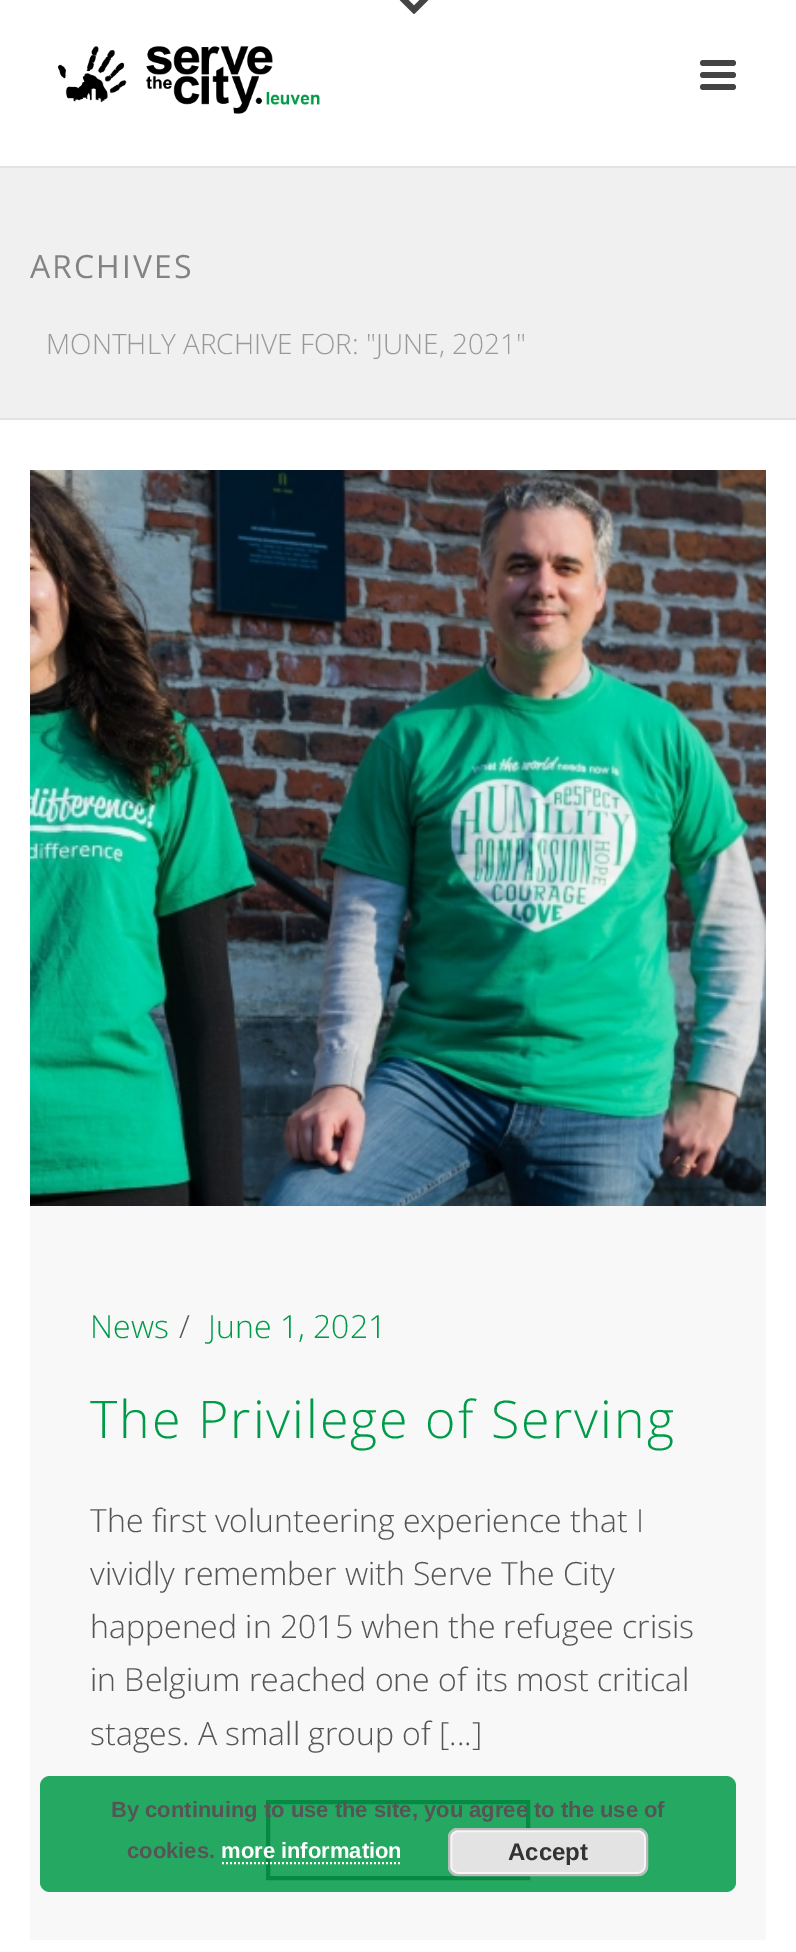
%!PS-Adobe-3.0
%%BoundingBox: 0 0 796 1952
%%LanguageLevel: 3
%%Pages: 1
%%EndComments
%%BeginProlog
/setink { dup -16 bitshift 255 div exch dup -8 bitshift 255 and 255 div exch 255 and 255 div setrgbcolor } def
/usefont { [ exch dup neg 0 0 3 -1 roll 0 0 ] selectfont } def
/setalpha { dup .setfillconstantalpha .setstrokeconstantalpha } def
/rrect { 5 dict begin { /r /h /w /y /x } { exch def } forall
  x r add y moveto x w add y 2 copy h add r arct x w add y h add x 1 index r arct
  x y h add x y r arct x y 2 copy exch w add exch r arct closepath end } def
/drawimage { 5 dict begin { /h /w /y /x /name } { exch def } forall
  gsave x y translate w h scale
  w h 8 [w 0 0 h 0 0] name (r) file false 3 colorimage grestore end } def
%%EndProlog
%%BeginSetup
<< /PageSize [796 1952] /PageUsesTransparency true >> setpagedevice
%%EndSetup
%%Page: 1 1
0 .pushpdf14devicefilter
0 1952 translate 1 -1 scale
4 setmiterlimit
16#FFFFFF setink
0 0 796 1952 rectfill
[
    [0 168 796 250 16#F0F0F0]
    [0 418 796 2 16#E3E3E3]
    [0 166 796 2 16#E3E3E3]
] { aload pop setink rectfill } forall
(img1.raw) 399 0 30 14 drawimage
(img2.raw) 58 46 262 68 drawimage
16#444444 setink
700 60 36 6 3 rrect fill
700 72 36 6 3 rrect fill
700 84 36 6 3 rrect fill
/OpenSans-Regular 32 usefont
16#838383 setink
30 278 moveto 2 0 (ARCHIVES) ashow
/OpenSans-Light 28 usefont
16#999999 setink
46 354 moveto (MONTHLY ARCHIVE FOR: "JUNE, 2021") show
16#F8F8F8 setink
30 1206 736 734 rectfill
(img3.raw) 30 470 736 736 drawimage
/OpenSans-Light 32 usefont
16#009B48 setink
90 1338 moveto (News) show
16#555555 setink
179 1338 moveto (/) show
16#009B48 setink
208 1338 moveto (June 1, 2021) show
/OpenSans-Light 52 usefont
90 1438 moveto 2 0 (The Privilege of Serving) ashow
/OpenSans-Light 32 usefont
16#555555 setink
[
    [(The first volunteering experience that I) 90 1532]
    [(vividly remember with Serve The City) 90 1585]
    [(happened in 2015 when the refugee crisis) 90 1638]
    [(in Belgium reached one of its most critical) 90 1691]
    [(stages. A small group of [...]) 90 1745]
] { aload pop moveto show } forall
16#252525 setink
4 setlinewidth
268 1802 260 76 rectstroke
0.85 setalpha
16#009B48 setink
40 1776 696 116 10 rrect fill
/LiberationSans-Bold 22 usefont
1 setalpha
16#555555 setink
111 1817 moveto (By continuing to use the site, you agree to the use of) show
127 1858 moveto (cookies.) show
16#FFFFFF setink
221 1858 moveto (more information) show
2 setlinewidth
[2 2] 0 setdash
222 1863 moveto 402 1863 lineto stroke
16#E3E3E3 setink
448 1828 200 48 10 rrect fill
16#F6F6F6 setink
[] 0 setdash
451 1831 194 42 7 rrect stroke
16#BBBBBB setink
449 1829 198 46 9 rrect stroke
/LiberationSans-Bold 24 usefont
16#333333 setink
508 1860 moveto (Accept) show
.poppdf14devicefilter showpage
%%EOF
